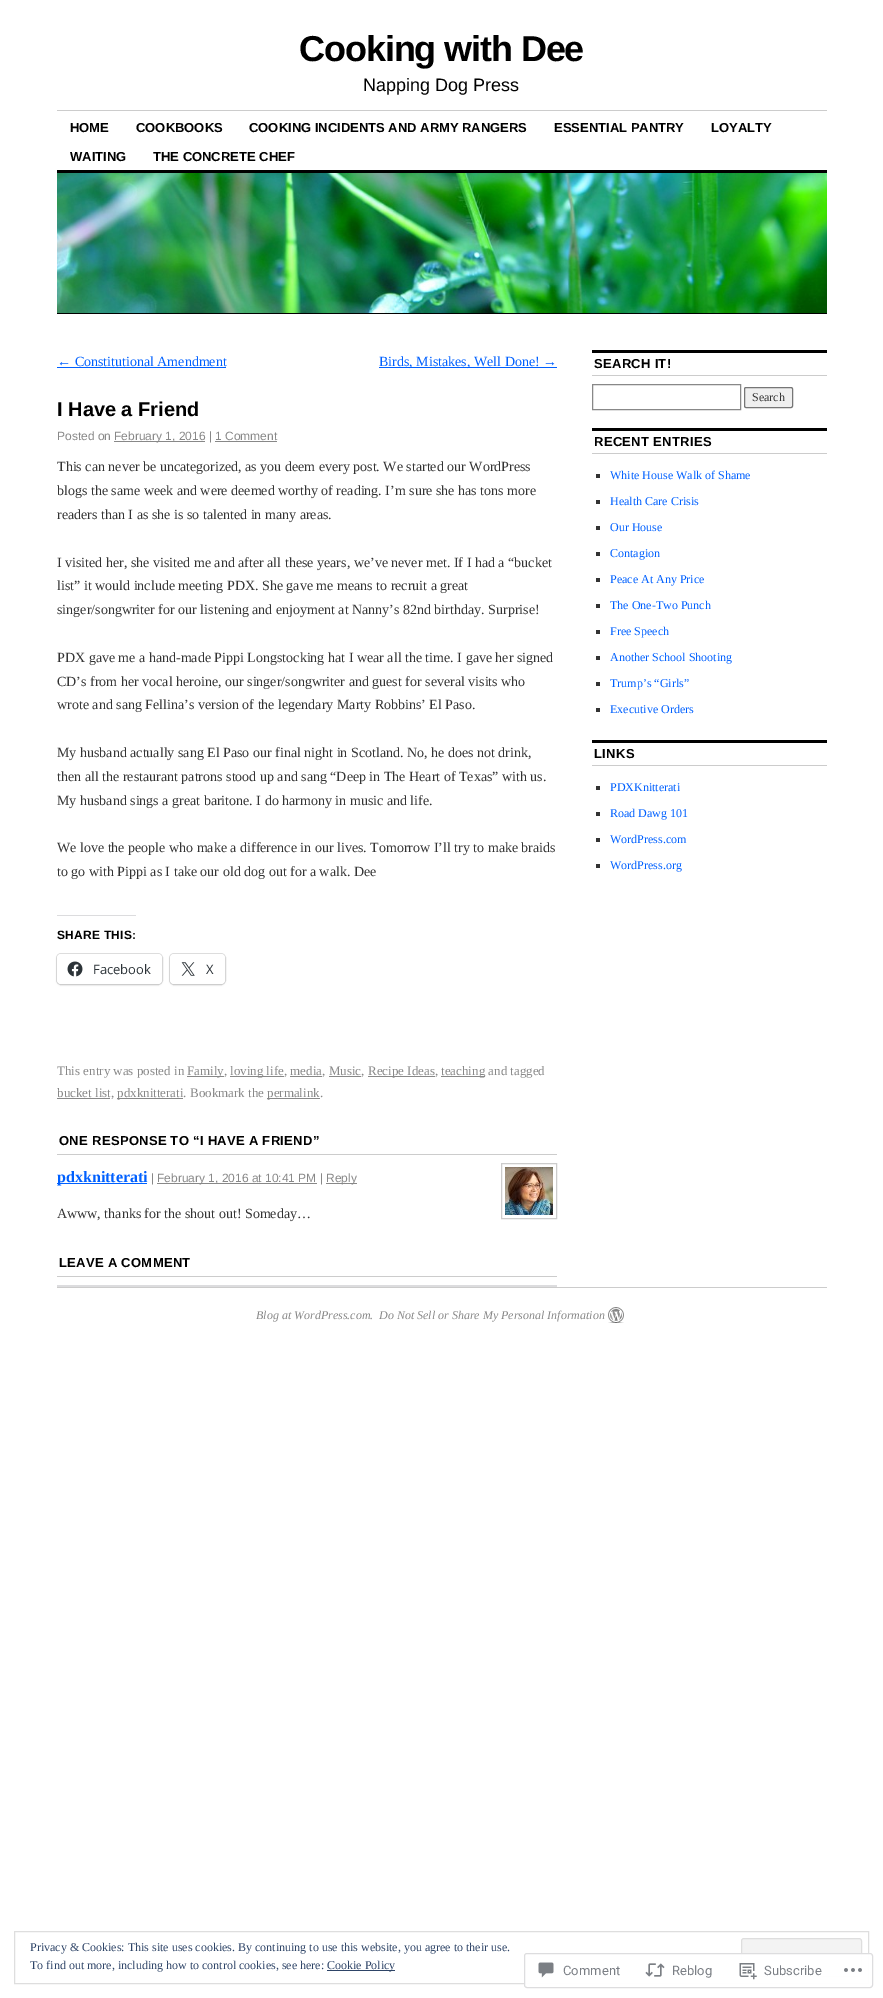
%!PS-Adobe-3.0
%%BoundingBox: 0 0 883 1998
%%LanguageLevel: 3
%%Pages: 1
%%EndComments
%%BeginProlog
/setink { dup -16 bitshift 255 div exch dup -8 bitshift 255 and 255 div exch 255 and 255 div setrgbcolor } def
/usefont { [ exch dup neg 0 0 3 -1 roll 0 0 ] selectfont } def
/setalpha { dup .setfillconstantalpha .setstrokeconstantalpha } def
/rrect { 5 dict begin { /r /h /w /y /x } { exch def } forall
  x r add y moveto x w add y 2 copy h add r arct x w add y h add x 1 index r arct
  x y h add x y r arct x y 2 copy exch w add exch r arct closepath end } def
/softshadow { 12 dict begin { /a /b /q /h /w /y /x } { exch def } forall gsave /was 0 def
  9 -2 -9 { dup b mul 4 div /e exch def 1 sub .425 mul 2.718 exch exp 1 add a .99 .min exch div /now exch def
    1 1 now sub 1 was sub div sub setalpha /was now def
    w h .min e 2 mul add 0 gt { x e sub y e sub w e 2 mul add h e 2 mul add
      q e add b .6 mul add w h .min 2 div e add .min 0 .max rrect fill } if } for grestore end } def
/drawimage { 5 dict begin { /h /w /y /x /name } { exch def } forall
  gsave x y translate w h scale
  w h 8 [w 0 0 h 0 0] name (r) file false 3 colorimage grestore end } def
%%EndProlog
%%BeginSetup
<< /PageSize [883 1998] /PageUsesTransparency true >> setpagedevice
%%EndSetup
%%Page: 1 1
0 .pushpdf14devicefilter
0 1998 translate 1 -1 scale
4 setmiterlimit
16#FFFFFF setink
0 0 883 1998 rectfill
/LiberationSans-Bold 36 usefont
16#000000 setink
299 61 moveto -1.1 0 (Cooking with Dee) ashow
/LiberationSans-Regular 18 usefont
363 91 moveto (Napping Dog Press) show
16#CCCCCC setink
57 110 770 1 rectfill
/LiberationSans-Bold 13 usefont
16#000000 setink
[
    [(HOME) 70 132]
    [(COOKBOOKS) 136 132]
    [(COOKING INCIDENTS AND ARMY RANGERS) 249 132]
    [(ESSENTIAL PANTRY) 554 132]
    [(LOYALTY) 711 132]
    [(WAITING) 70 161]
    [(THE CONCRETE CHEF) 153 161]
] { aload pop moveto show } forall
57 170 770 3 rectfill
(img1.raw) 57 173 770 140 drawimage
57 313 770 1 rectfill
/LiberationSerif-Regular 14 usefont
16#0060FF setink
57 366 moveto (← Constitutional Amendment) show
57 367 169 1 rectfill
379 367 178 1 rectfill
379 366 moveto (Birds, Mistakes, Well Done! →) show
/LiberationSans-Bold 20 usefont
16#000000 setink
57 416 moveto (I Have a Friend) show
/LiberationSans-Regular 12 usefont
16#888888 setink
57 440 moveto (Posted on) show
114 441 91 1 rectfill
114 440 moveto (February 1, 2016 | 1 Comment) show
215 441 62 1 rectfill
/LiberationSerif-Regular 14 usefont
16#333333 setink
[
    [(This can never be uncategorized, as you deem every post. We started our WordPress) 57 471]
    [(blogs the same week and were deemed worthy of reading. I’m sure she has tons more) 57 495]
    [(readers than I as she is so talented in many areas.) 57 519]
    [(I visited her, she visited me and after all these years, we’ve never met. If I had a “bucket) 57 567]
    [(list” it would include meeting PDX. She gave me means to recruit a great) 57 590]
    [(singer/songwriter for our listening and enjoyment at Nanny’s 82nd birthday. Surprise!) 57 614]
    [(PDX gave me a hand-made Pippi Longstocking hat I wear all the time. I gave her signed) 57 662]
    [(CD’s from her vocal heroine, our singer/songwriter and guest for several visits who) 57 686]
    [(wrote and sang Fellina’s version of the legendary Marty Robbins’ El Paso.) 57 709]
    [(My husband actually sang El Paso our final night in Scotland. No, he does not drink,) 57 757]
    [(then all the restaurant patrons stood up and sang “Deep in The Heart of Texas” with us.) 57 781]
    [(My husband sings a great baritone. I do harmony in music and life.) 57 805]
    [(We love the people who make a difference in our lives. Tomorrow I’ll try to make braids) 57 852]
    [(to go with Pippi as I take our old dog out for a walk. Dee) 57 876]
] { aload pop moveto show } forall
16#DCDCDE setink
57 915 79 1 rectfill
/LiberationSans-Bold 12 usefont
16#000000 setink
57 939 moveto 0.25 0 (SHARE THIS:) ashow
16#E0E0E0 setink
56.5 953.5 106 31 4.5 rrect stroke
16#000000 setink
57 955 105 30 4 1 0.12 softshadow
16#FFFFFF setink
57 954 105 30 4 rrect fill
(img2.raw) 67 961 16 16 drawimage
/OpenSans-Regular 13 usefont
16#2C3338 setink
93 974 moveto (Facebook) show
16#E0E0E0 setink
169.5 953.5 56 31 4.5 rrect stroke
16#000000 setink
170 955 55 30 4 1 0.12 softshadow
16#FFFFFF setink
170 954 55 30 4 rrect fill
(img3.raw) 181 962 14 14 drawimage
16#2C3338 setink
206 974 moveto (X) show
/LiberationSerif-Regular 13 usefont
16#888888 setink
57 1075 moveto (This entry was posted in) show
187 1076 37 1 rectfill
187 1075 moveto (Family,) show
230 1076 54 1 rectfill
230 1075 moveto (loving life, media, Music,) show
368 1076 67 1 rectfill
368 1075 moveto (Recipe Ideas,) show
441 1076 44 1 rectfill
441 1075 moveto (teaching and tagged) show
[
    [290 1076 32 1 16#888888]
    [329 1076 32 1 16#888888]
    [57 1098 53 1 16#888888]
] { aload pop setink rectfill } forall
57 1097 moveto (bucket list,) show
117 1098 66 1 rectfill
117 1097 moveto (pdxknitterati. Bookmark the) show
267 1098 53 1 rectfill
267 1097 moveto (permalink.) show
16#CCCCCC setink
57 1154 500 1 rectfill
/LiberationSans-Bold 13 usefont
16#000000 setink
59 1145 moveto 0.3 0 (ONE RESPONSE TO “I HAVE A FRIEND”) ashow
16#0060FF setink
57 1183 90 1 rectfill
/LiberationSerif-Bold 16 usefont
57 1182 moveto (pdxknitterati) show
/LiberationSans-Regular 12 usefont
16#888888 setink
151 1182 moveto (|) show
157 1183 160 1 rectfill
157 1182 moveto (February 1, 2016 at 10:41 PM |) show
326 1183 31 1 rectfill
326 1182 moveto (Reply) show
16#CCCCCC setink
501.5 1163.5 55 55 rectstroke
(img4.raw) 505 1167 48 48 drawimage
/LiberationSerif-Regular 14 usefont
16#333333 setink
57 1218 moveto (Awww, thanks for the shout out! Someday…) show
16#CCCCCC setink
57 1276 500 1 rectfill
/LiberationSans-Bold 13 usefont
16#000000 setink
59 1267 moveto 0.3 0 (LEAVE A COMMENT) ashow
[
    [57 1285 500 2 16#DCDCDE]
    [592 350 235 3 16#000000]
    [592 375 235 1 16#CCCCCC]
] { aload pop setink rectfill } forall
16#000000 setink
594 368 moveto 0.3 0 (SEARCH IT!) ashow
16#888888 setink
592.5 384.5 148 25 rectstroke
16#EFEFEF setink
744.5 387.5 48 20 1.5 rrect gsave fill grestore
16#767676 setink
stroke
/LiberationSerif-Regular 12 usefont
16#333333 setink
752 401 moveto (Search) show
16#000000 setink
592 428 235 3 rectfill
16#CCCCCC setink
592 453 235 1 rectfill
/LiberationSans-Bold 13 usefont
16#000000 setink
594 446 moveto 0.3 0 (RECENT ENTRIES) ashow
16#333333 setink
596 474 4 4 rectfill
/LiberationSerif-Regular 12 usefont
16#0060FF setink
610 479 moveto (White House Walk of Shame) show
16#333333 setink
596 500 4 4 rectfill
16#0060FF setink
610 505 moveto (Health Care Crisis) show
16#333333 setink
596 526 4 4 rectfill
16#0060FF setink
610 531 moveto (Our House) show
16#333333 setink
596 552 4 4 rectfill
16#0060FF setink
610 557 moveto (Contagion) show
16#333333 setink
596 578 4 4 rectfill
16#0060FF setink
610 583 moveto (Peace At Any Price) show
16#333333 setink
596 604 4 4 rectfill
16#0060FF setink
610 609 moveto (The One-Two Punch) show
16#333333 setink
596 630 4 4 rectfill
16#0060FF setink
610 635 moveto (Free Speech) show
16#333333 setink
596 656 4 4 rectfill
16#0060FF setink
610 661 moveto (Another School Shooting) show
16#333333 setink
596 682 4 4 rectfill
16#0060FF setink
610 687 moveto (Trump’s “Girls”) show
16#333333 setink
596 708 4 4 rectfill
16#0060FF setink
610 713 moveto (Executive Orders) show
16#000000 setink
592 740 235 3 rectfill
16#CCCCCC setink
592 765 235 1 rectfill
/LiberationSans-Bold 13 usefont
16#000000 setink
594 758 moveto 0.3 0 (LINKS) ashow
16#333333 setink
596 786 4 4 rectfill
/LiberationSerif-Regular 12 usefont
16#0060FF setink
610 791 moveto (PDXKnitterati) show
16#333333 setink
596 812 4 4 rectfill
16#0060FF setink
610 817 moveto (Road Dawg 101) show
16#333333 setink
596 838 4 4 rectfill
16#0060FF setink
610 843 moveto (WordPress.com) show
16#333333 setink
596 864 4 4 rectfill
16#0060FF setink
610 869 moveto (WordPress.org) show
16#CCCCCC setink
57 1287 770 1 rectfill
(img5.raw) 608 1307 16 16 drawimage
/LiberationSerif-Italic 12 usefont
16#888888 setink
256 1319 moveto (Blog at WordPress.com.) show
379 1319 moveto (Do Not Sell or Share My Personal Information) show
16#DEDEDE setink
14.5 1931.5 854 52 rectstroke
/LiberationSerif-Regular 12 usefont
16#2E4467 setink
30 1951 moveto (Privacy & Cookies: This site uses cookies. By continuing to use this website, you agree to their use.) show
16#F3F3F3 setink
741.5 1938.5 120 38 2.5 rrect gsave fill grestore
16#DEDEDE setink
stroke
16#2E4467 setink
30 1969 moveto (To find out more, including how to control cookies, see here:) show
327 1970 68 1 rectfill
327 1969 moveto (Cookie Policy) show
0.98 setalpha
16#FFFFFF setink
524 1953 349 35 3 rrect fill
16#DCDCDE setink
524.5 1953.5 348 34 2.5 rrect stroke
1 setalpha
(img6.raw) 538 1962 16 16 drawimage
/Roboto-Regular 13 usefont
16#7B7F85 setink
563 1975 moveto (Comment) show
(img7.raw) 645 1963 20 14 drawimage
672 1975 moveto (Reblog) show
(img8.raw) 739 1963 18 17 drawimage
764 1975 moveto (Subscribe) show
(img9.raw) 844 1968 18 4 drawimage
.poppdf14devicefilter showpage
%%EOF
